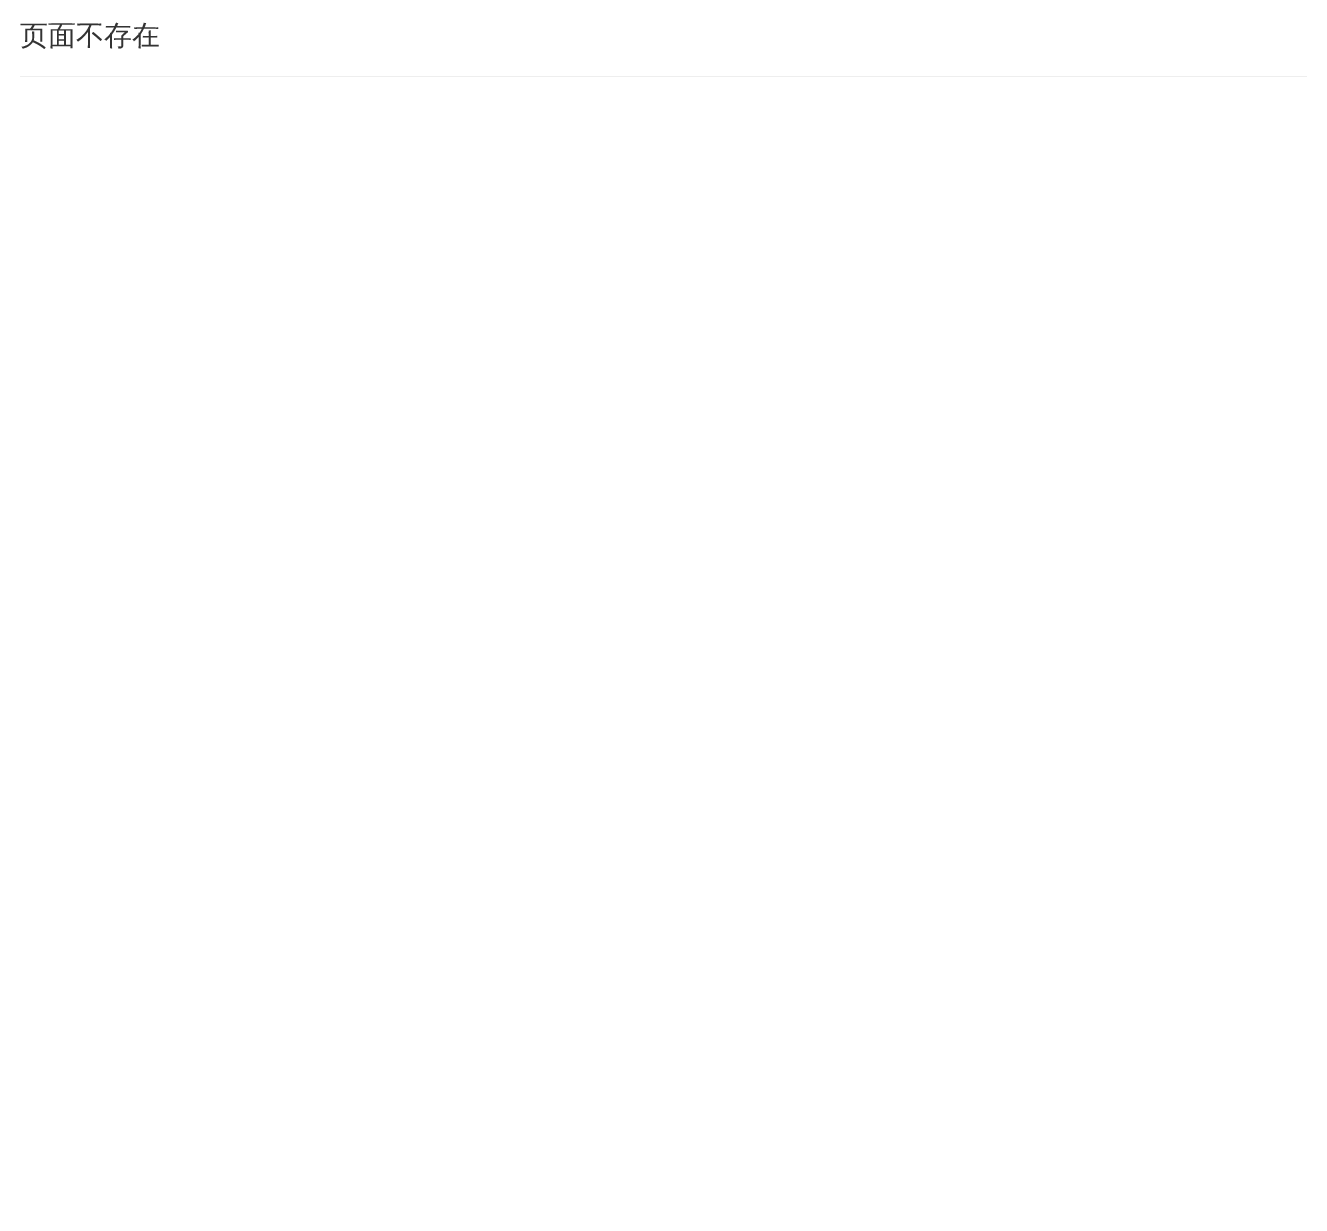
%!PS-Adobe-3.0
%%BoundingBox: 0 0 1327 1231
%%LanguageLevel: 3
%%Pages: 1
%%EndComments
%%BeginProlog
/setink { dup -16 bitshift 255 div exch dup -8 bitshift 255 and 255 div exch 255 and 255 div setrgbcolor } def
/usefont { [ exch dup neg 0 0 3 -1 roll 0 0 ] selectfont } def
%%EndProlog
%%BeginSetup
<< /PageSize [1327 1231] >> setpagedevice
%%EndSetup
%%Page: 1 1
0 1231 translate 1 -1 scale
4 setmiterlimit
16#FFFFFF setink
0 0 1327 1231 rectfill
/WenQuanYiZenHei-Medium 28 usefont
16#333333 setink
20 45 moveto (页面不存在) show
16#EEEEEE setink
20 76 1287 1 rectfill
showpage
%%EOF
